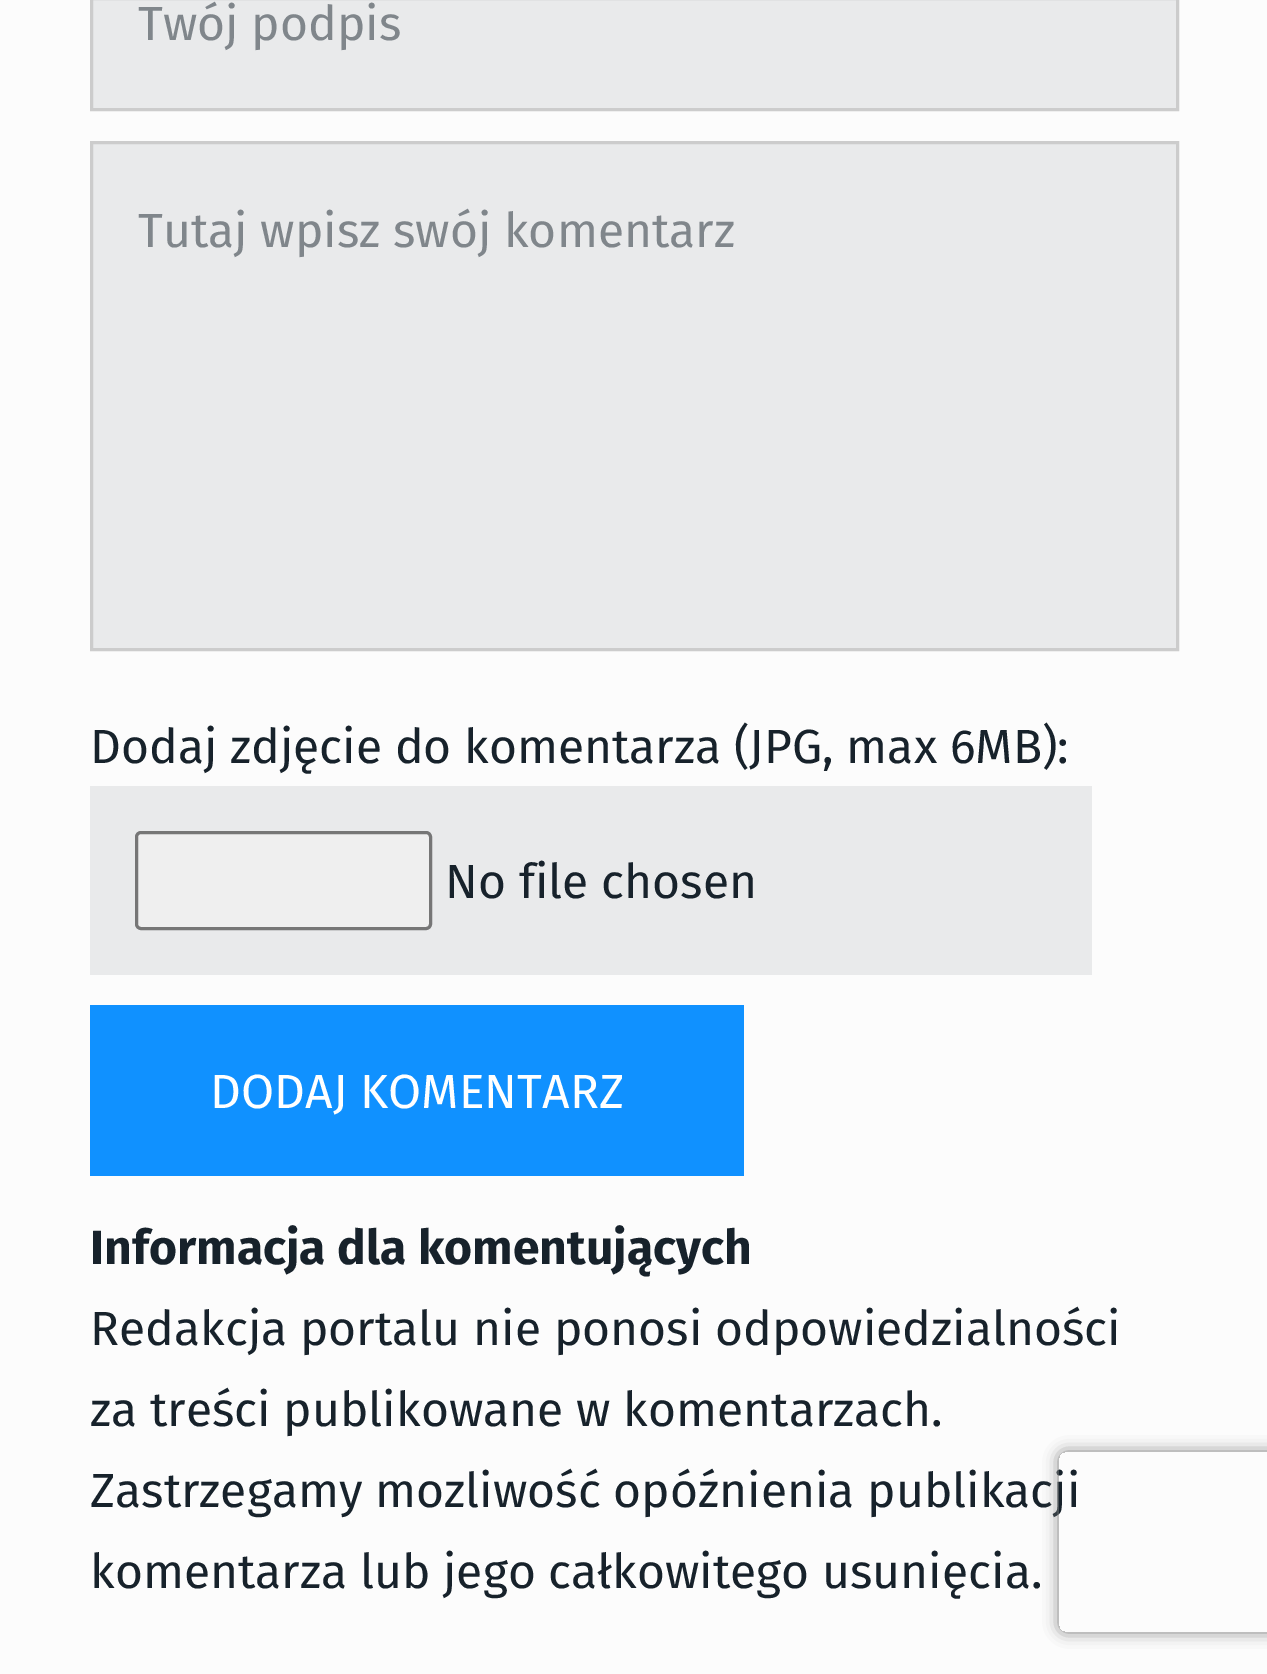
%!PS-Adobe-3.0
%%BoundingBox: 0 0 1267 1674
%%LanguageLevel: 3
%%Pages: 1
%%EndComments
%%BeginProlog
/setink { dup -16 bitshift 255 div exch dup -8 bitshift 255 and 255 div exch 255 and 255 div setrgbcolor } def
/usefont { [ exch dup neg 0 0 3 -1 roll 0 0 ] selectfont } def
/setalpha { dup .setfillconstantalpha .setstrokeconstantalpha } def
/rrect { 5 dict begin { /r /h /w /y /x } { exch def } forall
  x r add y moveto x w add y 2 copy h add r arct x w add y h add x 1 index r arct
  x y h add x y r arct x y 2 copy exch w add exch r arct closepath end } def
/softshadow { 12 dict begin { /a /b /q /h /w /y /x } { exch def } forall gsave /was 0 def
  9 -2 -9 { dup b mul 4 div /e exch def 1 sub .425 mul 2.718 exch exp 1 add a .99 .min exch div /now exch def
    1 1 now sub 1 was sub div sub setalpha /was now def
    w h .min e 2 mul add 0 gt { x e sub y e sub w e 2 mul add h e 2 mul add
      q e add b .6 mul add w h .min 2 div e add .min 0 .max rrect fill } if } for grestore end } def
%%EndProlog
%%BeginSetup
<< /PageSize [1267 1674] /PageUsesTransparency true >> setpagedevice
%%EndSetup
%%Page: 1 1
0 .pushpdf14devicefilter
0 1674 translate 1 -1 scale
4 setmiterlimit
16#FCFCFC setink
0 0 1267 1674 rectfill
16#E9EAEB setink
91.5 -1.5 moveto 1177.5 -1.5 lineto 1177.5 109.5 lineto 91.5 109.5 lineto closepath gsave fill grestore
16#CCCCCC setink
3 setlinewidth
stroke
/FiraSans-Regular 48 usefont
16#80868B setink
138 40 moveto (Twój podpis) show
16#E9EAEB setink
91.5 142.5 moveto 1177.5 142.5 lineto 1177.5 649.5 lineto 91.5 649.5 lineto closepath gsave fill grestore
16#CCCCCC setink
stroke
16#80868B setink
138 247 moveto (Tutaj wpisz swój komentarz) show
16#17222B setink
90 763 moveto (Dodaj zdjęcie do komentarza \(JPG, max 6MB\):) show
16#E9EAEB setink
90 786 1002 189 rectfill
16#EFEFEF setink
136.5 832.5 294 96 4.5 rrect gsave fill grestore
16#767676 setink
stroke
16#17222B setink
445 898 moveto (No file chosen) show
16#1091FF setink
90 1005 654 171 rectfill
16#FFFFFF setink
210 1108 moveto (DODAJ KOMENTARZ) show
/FiraSans-Bold 48 usefont
16#17222B setink
90 1264 moveto (Informacja dla komentujących) show
/FiraSans-Regular 48 usefont
[
    [(Redakcja portalu nie ponosi odpowiedzialności) 90 1345]
    [(za treści publikowane w komentarzach.) 90 1426]
    [(Zastrzegamy mozliwość opóźnienia publikacji) 90 1507]
    [(komentarza lub jego całkowitego usunięcia.) 90 1588]
] { aload pop moveto show } forall
gsave
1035 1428 moveto 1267 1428 lineto 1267 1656 lineto 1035 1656 lineto closepath 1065 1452 moveto 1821 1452 lineto 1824.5 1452 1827 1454.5 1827 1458 curveto 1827 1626 lineto 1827 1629.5 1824.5 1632 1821 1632 curveto 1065 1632 lineto 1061.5 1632 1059 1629.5 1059 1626 curveto 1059 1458 lineto 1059 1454.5 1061.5 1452 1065 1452 curveto closepath eoclip newpath
16#808080 setink
1059 1452 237 180 6 7.5 1 softshadow
grestore
.poppdf14devicefilter showpage
%%EOF
